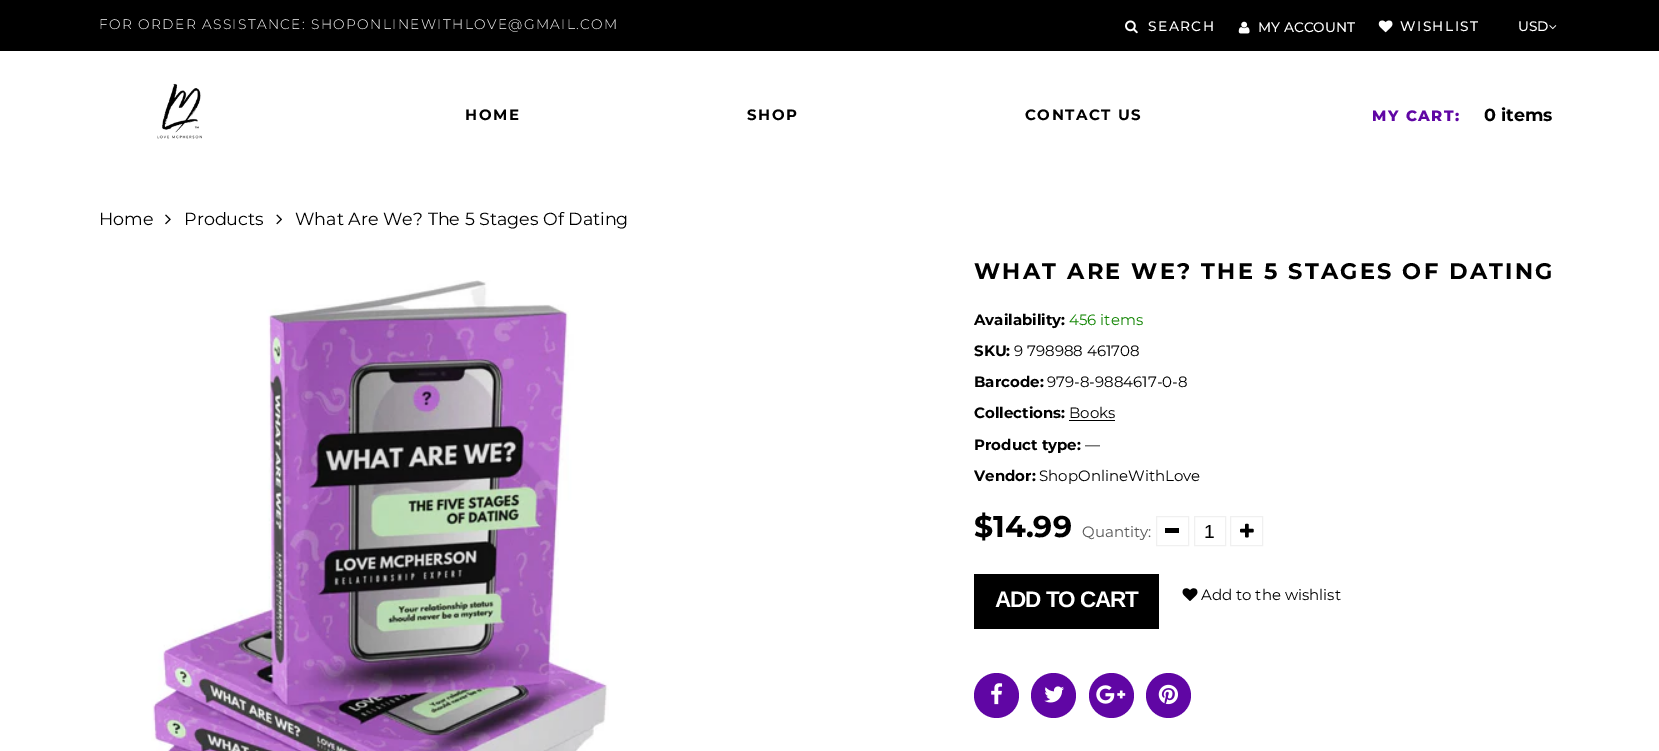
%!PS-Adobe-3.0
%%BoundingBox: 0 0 1659 751
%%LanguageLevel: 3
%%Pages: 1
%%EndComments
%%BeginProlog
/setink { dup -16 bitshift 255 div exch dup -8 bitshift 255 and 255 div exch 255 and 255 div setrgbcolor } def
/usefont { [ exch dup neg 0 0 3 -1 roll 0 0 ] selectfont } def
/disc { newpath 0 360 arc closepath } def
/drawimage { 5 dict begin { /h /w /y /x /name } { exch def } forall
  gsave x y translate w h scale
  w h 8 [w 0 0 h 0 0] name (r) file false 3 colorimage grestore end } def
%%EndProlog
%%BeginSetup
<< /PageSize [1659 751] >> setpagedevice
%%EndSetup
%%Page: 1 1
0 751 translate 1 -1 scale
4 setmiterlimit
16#FFFFFF setink
0 0 1659 751 rectfill
16#000000 setink
0 0 1659 51 rectfill
/Montserrat-Light 13.75 usefont
16#FFFFFF setink
99 29 moveto 1.38 0 (FOR ORDER ASSISTANCE: SHOPONLINEWITHLOVE@GMAIL.COM) ashow
(img1.raw) 1125 20 13 14 drawimage
/Montserrat-Medium 13.75 usefont
1148 31 moveto 1.38 0 (SEARCH) ashow
(img2.raw) 1238 21 12 13 drawimage
1258 32 moveto (MY ACCOUNT) show
(img3.raw) 1378 20 15 13 drawimage
1400 31 moveto 1.38 0 (WISHLIST) ashow
1518 31 moveto (USD) show
(img4.raw) 1549 25 8 5 drawimage
(img5.raw) 157 83 45 56 drawimage
/Montserrat-Bold 15 usefont
16#000000 setink
465 120 moveto 1.5 0 (HOME) ashow
747 120 moveto 1.5 0 (SHOP) ashow
1025 120 moveto 1.5 0 (CONTACT US) ashow
/Montserrat-ExtraBold 15 usefont
16#6006A4 setink
1372 121 moveto 1.5 0 (MY CART:) ashow
/Montserrat-Bold 17.5 usefont
16#000000 setink
1484 121 moveto (0 items) show
/Montserrat-Regular 17.5 usefont
99 225 moveto (Home) show
(img6.raw) 165 214 6 11 drawimage
184 225 moveto (Products) show
(img7.raw) 276 214 6 11 drawimage
295 225 moveto (What Are We? The 5 Stages Of Dating) show
(img8.raw) 151 280 458 471 drawimage
/Montserrat-Bold 22.5 usefont
974 279 moveto 2.25 0 (WHAT ARE WE? THE 5 STAGES OF DATING) ashow
/Montserrat-Bold 15 usefont
974 325 moveto (Availability:) show
/Montserrat-Regular 15 usefont
16#118502 setink
1069 325 moveto (456 items) show
/Montserrat-Bold 15 usefont
16#000000 setink
974 356 moveto (SKU:) show
/Montserrat-Regular 15 usefont
1014 356 moveto (9 798988 461708) show
/Montserrat-Bold 15 usefont
974 387 moveto (Barcode:) show
/Montserrat-Regular 15 usefont
1047 387 moveto (979-8-9884617-0-8) show
/Montserrat-Bold 15 usefont
974 418 moveto (Collections:) show
/Montserrat-Regular 15 usefont
1069 418 moveto (Books) show
1069 420 46 1 rectfill
/Montserrat-Bold 15 usefont
974 450 moveto (Product type:) show
/Montserrat-Regular 15 usefont
1085 450 moveto (—) show
/Montserrat-Bold 15 usefont
974 481 moveto (Vendor:) show
/Montserrat-Regular 15 usefont
1039 481 moveto (ShopOnlineWithLove) show
/Montserrat-Bold 30 usefont
974 537 moveto ($14.99) show
/Montserrat-Regular 15 usefont
16#555555 setink
1082 537 moveto (Quantity:) show
16#F0F0F0 setink
1156.5 516.5 32 29 rectstroke
16#000000 setink
1165 528 14 5 rectfill
16#F0F0F0 setink
1194.5 516.5 31 29 rectstroke
/LiberationSans-Regular 19 usefont
16#000000 setink
1204 538 moveto (1) show
16#F0F0F0 setink
1230.5 516.5 32 29 rectstroke
(img9.raw) 1240 523 14 15 drawimage
16#000000 setink
974 574 185 55 rectfill
/LiberationSans-Bold 22.5 usefont
16#FFFFFF setink
995 607 moveto -1.1 0 (ADD TO CART) ashow
(img10.raw) 1182 588 16 13 drawimage
/Montserrat-Regular 15 usefont
16#000000 setink
1201 600 moveto (Add to the wishlist) show
16#6006A4 setink
996.5 695.5 22.5 disc fill
(img11.raw) 991 683 12 22 drawimage
1053.5 695.5 22.5 disc fill
(img12.raw) 1044 686 20 17 drawimage
1111.5 695.5 22.5 disc fill
(img13.raw) 1096 685 30 19 drawimage
1168.5 695.5 22.5 disc fill
(img14.raw) 1158 684 20 21 drawimage
showpage
%%EOF
